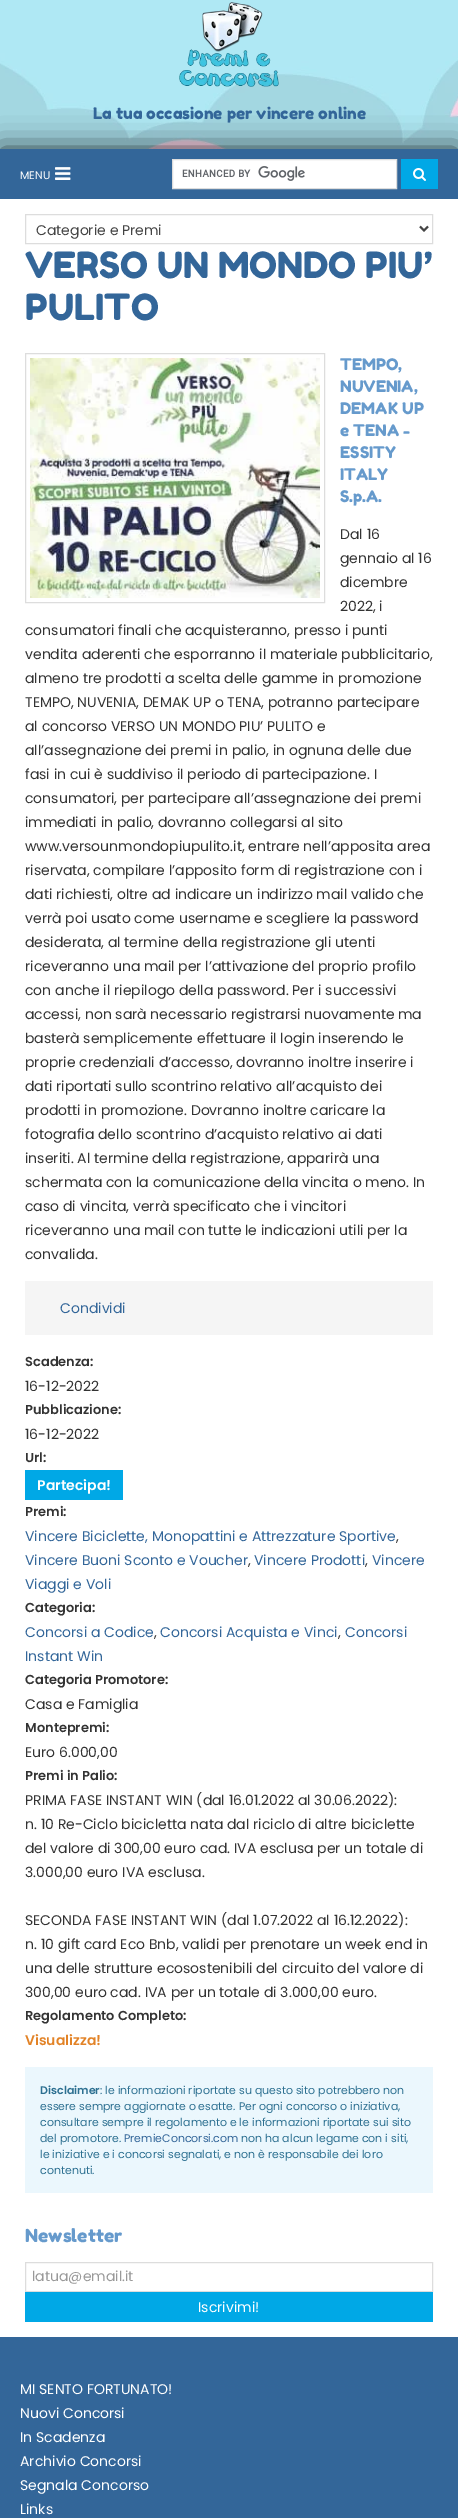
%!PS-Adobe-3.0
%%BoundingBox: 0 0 458 2518
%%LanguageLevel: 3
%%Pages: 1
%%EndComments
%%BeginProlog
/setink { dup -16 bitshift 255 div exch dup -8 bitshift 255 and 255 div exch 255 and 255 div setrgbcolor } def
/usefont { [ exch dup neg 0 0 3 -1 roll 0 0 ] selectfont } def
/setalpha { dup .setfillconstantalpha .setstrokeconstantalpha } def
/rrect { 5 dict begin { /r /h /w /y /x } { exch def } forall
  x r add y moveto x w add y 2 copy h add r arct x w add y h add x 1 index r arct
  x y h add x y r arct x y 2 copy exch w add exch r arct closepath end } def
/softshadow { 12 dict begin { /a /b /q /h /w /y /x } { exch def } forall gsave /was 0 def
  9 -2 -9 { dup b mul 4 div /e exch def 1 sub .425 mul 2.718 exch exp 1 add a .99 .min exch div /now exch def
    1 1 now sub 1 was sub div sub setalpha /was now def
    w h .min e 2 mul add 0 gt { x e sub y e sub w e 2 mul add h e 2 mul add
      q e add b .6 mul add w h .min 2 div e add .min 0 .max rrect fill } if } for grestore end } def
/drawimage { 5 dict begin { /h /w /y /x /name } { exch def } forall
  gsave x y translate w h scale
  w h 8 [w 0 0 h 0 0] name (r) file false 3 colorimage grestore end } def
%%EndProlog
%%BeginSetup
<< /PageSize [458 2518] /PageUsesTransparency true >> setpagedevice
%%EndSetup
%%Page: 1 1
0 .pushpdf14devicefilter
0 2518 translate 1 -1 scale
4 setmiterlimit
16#FFFFFF setink
0 0 458 2518 rectfill
(img1.raw) 0 0 458 149 drawimage
0.6 setalpha
0 0 458 149 rectfill
1 setalpha
(img2.raw) 179 2 100 85 drawimage
16#000000 setink
0 149 458 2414 0 15 0.75 softshadow
/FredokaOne-Regular 16 usefont
16#336699 setink
93 119 moveto (La tua occasione per vincere online) show
16#FFFFFF setink
0 199 458 2138 rectfill
16#336699 setink
0 149 458 50 rectfill
/Poppins-Regular 11 usefont
16#FFFFFF setink
20 179 moveto (MENU) show
(img3.raw) 55 167 16 13 drawimage
173 160 223 28 rectfill
(img4.raw) 182 166 123 15 drawimage
16#DDDDDD setink
172.5 159.5 224 29 rectstroke
16#00A8E6 setink
401 159 37 30 rectfill
(img5.raw) 413 168 13 13 drawimage
16#DDDDDD setink
25.5 214.5 407 29 rectstroke
16#444444 setink
2 setlinewidth
420 226.5 moveto 424 230.5 lineto 428 226.5 lineto stroke
/Poppins-Regular 14 usefont
36 235 moveto (Categorie e Premi) show
/FredokaOne-Regular 36 usefont
16#336699 setink
25 278 moveto (VERSO UN MONDO PIU’) show
25 320 moveto (PULITO) show
16#DDDDDD setink
1 setlinewidth
25.5 353.5 299 249 rectstroke
(img6.raw) 30 358 290 240 drawimage
/FredokaOne-Regular 16 usefont
16#669ACC setink
[
    [(TEMPO,) 340 370]
    [(NUVENIA,) 340 392]
    [(DEMAK UP) 340 414]
    [(e TENA -) 340 436]
    [(ESSITY) 340 458]
    [(ITALY) 340 480]
    [(S.p.A.) 340 502]
] { aload pop moveto show } forall
/Poppins-Regular 14 usefont
16#333333 setink
[
    [(Dal 16) 340 539]
    [(gennaio al 16) 340 563]
    [(dicembre) 340 587]
    [(2022, i) 340 611]
    [(consumatori finali che acquisteranno, presso i punti) 25 635]
    [(vendita aderenti che esporranno il materiale pubblicitario,) 25 659]
    [(almeno tre prodotti a scelta delle gamme in promozione) 25 683]
    [(TEMPO, NUVENIA, DEMAK UP o TENA, potranno partecipare) 25 707]
    [(al concorso VERSO UN MONDO PIU’ PULITO e) 25 731]
    [(all’assegnazione dei premi in palio, in ognuna delle due) 25 755]
    [(fasi in cui è suddiviso il periodo di partecipazione. I) 25 779]
    [(consumatori, per partecipare all’assegnazione dei premi) 25 803]
    [(immediati in palio, dovranno collegarsi al sito) 25 827]
    [(www.versounmondopiupulito.it, entrare nell’apposita area) 25 851]
    [(riservata, compilare l’apposito form di registrazione con i) 25 875]
    [(dati richiesti, oltre ad indicare un indirizzo mail valido che) 25 899]
    [(verrà poi usato come username e scegliere la password) 25 923]
    [(desiderata, al termine della registrazione gli utenti) 25 947]
    [(riceveranno una mail per l’attivazione del proprio profilo) 25 971]
    [(con anche il riepilogo della password. Per i successivi) 25 995]
    [(accessi, non sarà necessario registrarsi nuovamente ma) 25 1019]
    [(basterà semplicemente effettuare il login inserendo le) 25 1043]
    [(proprie credenziali d’accesso, dovranno inoltre inserire i) 25 1067]
    [(dati riportati sullo scontrino relativo all’acquisto dei) 25 1091]
    [(prodotti in promozione. Dovranno inoltre caricare la) 25 1115]
    [(fotografia dello scontrino d’acquisto relativo ai dati) 25 1139]
    [(inseriti. Al termine della registrazione, apparirà una) 25 1163]
    [(schermata con la comunicazione della vincita o meno. In) 25 1187]
    [(caso di vincita, verrà specificato che i vincitori) 25 1211]
    [(riceveranno una mail con tutte le indicazioni utili per la) 25 1235]
    [(convalida.) 25 1259]
] { aload pop moveto show } forall
16#F5F5F5 setink
25 1281 408 54 rectfill
16#336699 setink
60 1313 moveto (Condividi) show
/Poppins-SemiBold 13 usefont
16#333333 setink
25 1366 moveto (Scadenza:) show
/Poppins-Regular 14 usefont
25 1391 moveto (16-12-2022) show
/Poppins-SemiBold 13 usefont
25 1414 moveto (Pubblicazione:) show
/Poppins-Regular 14 usefont
25 1439 moveto (16-12-2022) show
/Poppins-SemiBold 13 usefont
25 1462 moveto (Url:) show
16#00A8E6 setink
25 1470 98 30 rectfill
/Poppins-SemiBold 14 usefont
16#FFFFFF setink
37 1490 moveto (Partecipa!) show
/Poppins-SemiBold 13 usefont
16#333333 setink
25 1516 moveto (Premi:) show
/Poppins-Regular 14 usefont
16#336699 setink
25 1541 moveto (Vincere Biciclette, Monopattini e Attrezzature Sportive) show
16#333333 setink
396 1541 moveto (,) show
16#336699 setink
25 1565 moveto (Vincere Buoni Sconto e Voucher) show
16#333333 setink
248 1565 moveto (,) show
16#336699 setink
254 1565 moveto (Vincere Prodotti) show
16#333333 setink
365 1565 moveto (,) show
16#336699 setink
372 1565 moveto (Vincere) show
25 1589 moveto (Viaggi e Voli) show
/Poppins-SemiBold 13 usefont
16#333333 setink
25 1612 moveto (Categoria:) show
/Poppins-Regular 14 usefont
16#336699 setink
25 1637 moveto (Concorsi a Codice) show
16#333333 setink
154 1637 moveto (,) show
16#336699 setink
160 1637 moveto (Concorsi Acquista e Vinci) show
16#333333 setink
338 1637 moveto (,) show
16#336699 setink
345 1637 moveto (Concorsi) show
25 1661 moveto (Instant Win) show
/Poppins-SemiBold 13 usefont
16#333333 setink
25 1684 moveto (Categoria Promotore:) show
/Poppins-Regular 14 usefont
25 1709 moveto (Casa e Famiglia) show
/Poppins-SemiBold 13 usefont
25 1732 moveto (Montepremi:) show
/Poppins-Regular 14 usefont
25 1757 moveto (Euro 6.000,00) show
/Poppins-SemiBold 13 usefont
25 1780 moveto (Premi in Palio:) show
/Poppins-Regular 14 usefont
[
    [(PRIMA FASE INSTANT WIN \(dal 16.01.2022 al 30.06.2022\):) 25 1805]
    [(n. 10 Re-Ciclo bicicletta nata dal riciclo di altre biciclette) 25 1829]
    [(del valore di 300,00 euro cad. IVA esclusa per un totale di) 25 1853]
    [(3.000,00 euro IVA esclusa.) 25 1877]
    [(SECONDA FASE INSTANT WIN \(dal 1.07.2022 al 16.12.2022\):) 25 1925]
    [(n. 10 gift card Eco Bnb, validi per prenotare un week end in) 25 1949]
    [(una delle strutture ecosostenibili del circuito del valore di) 25 1973]
    [(300,00 euro cad. IVA per un totale di 3.000,00 euro.) 25 1997]
] { aload pop moveto show } forall
/Poppins-SemiBold 13 usefont
25 2020 moveto (Regolamento Completo:) show
/Poppins-SemiBold 14 usefont
16#E28327 setink
25 2045 moveto (Visualizza!) show
16#EBF7FD setink
25 2067 408 126 rectfill
/Poppins-SemiBold 11 usefont
16#2D7091 setink
40 2094 moveto (Disclaimer) show
/Poppins-Regular 11 usefont
[
    [(: le informazioni riportate su questo sito potrebbero non) 100 2094]
    [(essere sempre aggiornate o esatte. Per ogni concorso o iniziativa,) 40 2110]
    [(consultare sempre il regolamento e le informazioni riportate sui sito) 40 2126]
    [(del promotore.) 40 2142]
] { aload pop moveto show } forall
16#336699 setink
124 2142 moveto (PremieConcorsi.com) show
16#2D7091 setink
[
    [(non ha alcun legame con i siti,) 241 2142]
    [(le iniziative e i concorsi segnalati, e non è responsabile dei loro) 40 2158]
    [(contenuti.) 40 2174]
] { aload pop moveto show } forall
/FredokaOne-Regular 18 usefont
16#669ACC setink
25 2242 moveto (Newsletter) show
16#DDDDDD setink
25.5 2262.5 407 29 rectstroke
/Poppins-Regular 14 usefont
16#999999 setink
32 2281 moveto (latua@email.it) show
16#00A8E6 setink
25 2292 408 30 rectfill
16#FFFFFF setink
198 2312 moveto (Iscrivimi!) show
16#336699 setink
0 2337 458 181 rectfill
16#FFFFFF setink
[
    [(MI SENTO FORTUNATO!) 20 2394]
    [(Nuovi Concorsi) 20 2418]
    [(In Scadenza) 20 2442]
    [(Archivio Concorsi) 20 2466]
    [(Segnala Concorso) 20 2490]
    [(Links) 20 2514]
] { aload pop moveto show } forall
.poppdf14devicefilter showpage
%%EOF
